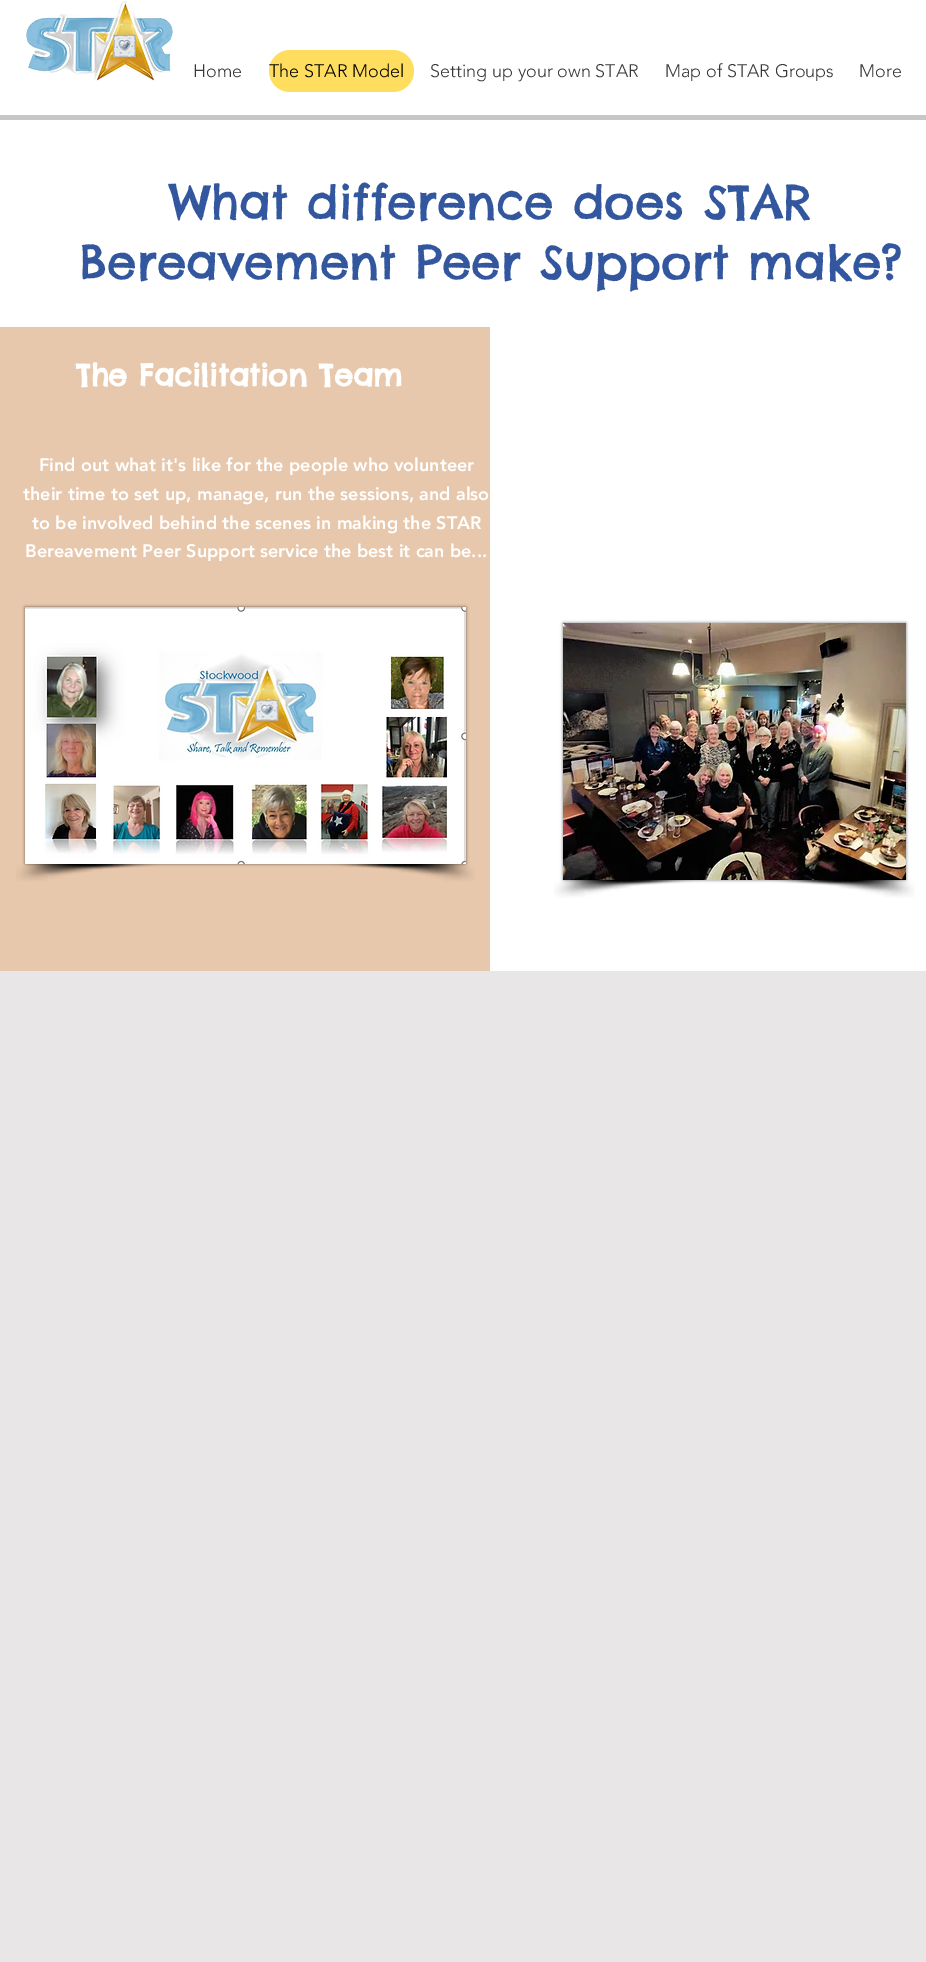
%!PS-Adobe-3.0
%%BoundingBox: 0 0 926 1962
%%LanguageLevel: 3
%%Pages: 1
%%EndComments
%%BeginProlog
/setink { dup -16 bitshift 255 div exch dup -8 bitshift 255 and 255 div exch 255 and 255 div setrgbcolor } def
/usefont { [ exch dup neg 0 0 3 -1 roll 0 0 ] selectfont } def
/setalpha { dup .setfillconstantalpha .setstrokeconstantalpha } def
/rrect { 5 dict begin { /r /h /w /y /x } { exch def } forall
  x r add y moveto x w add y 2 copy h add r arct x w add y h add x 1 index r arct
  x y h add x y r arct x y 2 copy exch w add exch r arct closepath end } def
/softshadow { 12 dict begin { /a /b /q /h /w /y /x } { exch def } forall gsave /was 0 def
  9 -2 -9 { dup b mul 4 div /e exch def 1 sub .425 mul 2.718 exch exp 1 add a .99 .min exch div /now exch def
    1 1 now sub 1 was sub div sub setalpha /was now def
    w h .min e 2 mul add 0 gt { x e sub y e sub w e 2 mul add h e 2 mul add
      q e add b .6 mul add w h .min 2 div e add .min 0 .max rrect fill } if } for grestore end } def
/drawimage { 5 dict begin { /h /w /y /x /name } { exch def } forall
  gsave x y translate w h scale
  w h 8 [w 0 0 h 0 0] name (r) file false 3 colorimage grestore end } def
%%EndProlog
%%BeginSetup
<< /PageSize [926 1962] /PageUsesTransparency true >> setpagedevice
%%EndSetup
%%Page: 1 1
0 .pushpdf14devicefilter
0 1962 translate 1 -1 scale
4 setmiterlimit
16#E8E6E6 setink
0 0 926 1962 rectfill
16#FFFFFF setink
0 0 926 115 rectfill
16#C7C7C7 setink
0 115 926 5 rectfill
(img1.raw) 26 1 147 80 drawimage
/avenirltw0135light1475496-Light 18 usefont
16#383838 setink
193 77 moveto (Home) show
16#FFDE5F setink
269 50 145 42 21 rrect fill
16#000000 setink
269 77 moveto (The STAR Model) show
16#383838 setink
[
    [(Setting up your own STAR) 430 77]
    [(Map of STAR Groups) 665 77]
    [(More) 859 77]
] { aload pop moveto show } forall
16#FFFFFF setink
0 120 926 207 rectfill
/ChelseaMarket-Regular 47 usefont
16#33579F setink
169 219 moveto (What difference does STAR) show
79 279 moveto (Bereavement Peer Support make?) show
16#E8C8AC setink
0 327 490 644 rectfill
/ChelseaMarket-Bold 30 usefont
16#FFFFFF setink
76 386 moveto (The Facilitation Team) show
/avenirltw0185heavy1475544-Black 18 usefont
[
    [(Find out what it's like for the people who volunteer) 39 471]
    [(their time to set up, manage, run the sessions, and also) 23 500]
    [(to be involved behind the scenes in making the STAR) 32 529]
    [(Bereavement Peer Support service the best it can be...) 25 557]
] { aload pop moveto show } forall
16#000000 setink
25 607 441 257 0 1.5 0.5 softshadow
(img2.raw) 25 607 441 257 drawimage
(img3.raw) 16 864 154 18 drawimage
(img4.raw) 321 864 154 18 drawimage
16#FFFFFF setink
490 327 436 644 rectfill
16#000000 setink
563 623 343 257 0 1.5 0.5 softshadow
(img5.raw) 563 623 343 257 drawimage
(img6.raw) 554 880 154 18 drawimage
(img7.raw) 761 880 154 18 drawimage
.poppdf14devicefilter showpage
%%EOF
